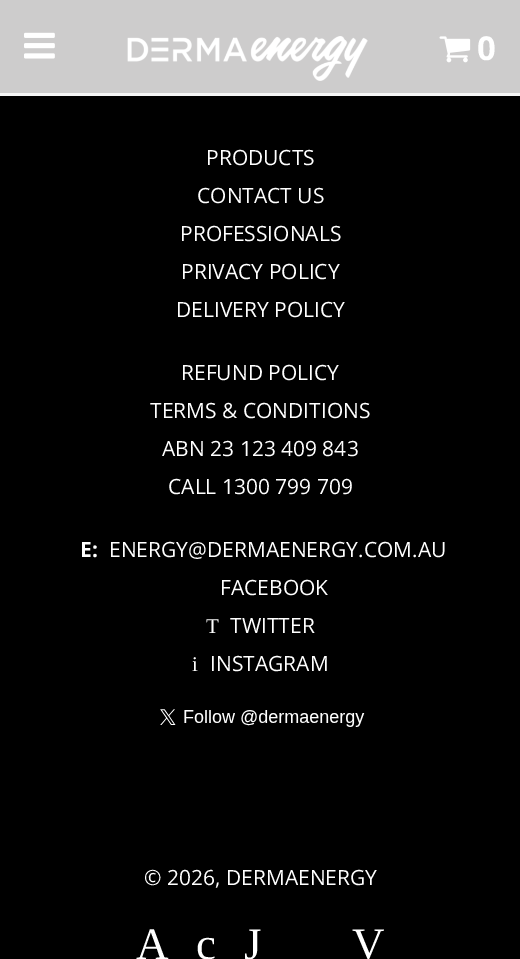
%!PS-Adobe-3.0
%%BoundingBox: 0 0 520 959
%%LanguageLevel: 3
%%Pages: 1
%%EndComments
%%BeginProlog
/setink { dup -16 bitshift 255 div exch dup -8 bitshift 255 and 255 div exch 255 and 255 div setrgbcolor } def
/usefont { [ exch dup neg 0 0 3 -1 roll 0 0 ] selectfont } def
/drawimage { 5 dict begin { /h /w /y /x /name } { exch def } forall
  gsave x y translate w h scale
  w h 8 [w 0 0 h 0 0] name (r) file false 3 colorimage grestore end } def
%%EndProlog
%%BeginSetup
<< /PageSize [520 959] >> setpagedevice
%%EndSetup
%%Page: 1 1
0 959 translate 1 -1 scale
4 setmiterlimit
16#000000 setink
0 0 520 959 rectfill
16#CDCCCC setink
0 0 520 93 rectfill
(img1.raw) 24 32 31 27 drawimage
(img2.raw) 127 36 241 45 drawimage
(img3.raw) 439 36 32 27 drawimage
/OpenSans-Bold 33 usefont
16#FFFFFF setink
477 60 moveto (0) show
16#F6F6F6 setink
0 93 520 3 rectfill
/OpenSans-Regular 21 usefont
16#FFFFFF setink
[
    [(PRODUCTS) 206 165]
    [(CONTACT US) 197 203]
    [(PROFESSIONALS) 180 241]
    [(PRIVACY POLICY) 181 279]
    [(DELIVERY POLICY) 176 317]
    [(REFUND POLICY) 181 380]
    [(TERMS & CONDITIONS) 150 418]
    [(ABN 23 123 409 843) 162 456]
    [(CALL 1300 799 709) 168 494]
] { aload pop moveto show } forall
/OpenSans-Bold 21 usefont
80 557 moveto (E:) show
/OpenSans-Regular 21 usefont
109 557 moveto (ENERGY@DERMAENERGY.COM.AU) show
220 595 moveto (FACEBOOK) show
/LiberationSerif-Regular 21 usefont
206 633 moveto (T) show
/OpenSans-Regular 21 usefont
230 633 moveto (TWITTER) show
/LiberationSerif-Regular 21 usefont
192 671 moveto (i) show
/OpenSans-Regular 21 usefont
210 671 moveto (INSTAGRAM) show
(img4.raw) 160 709 205 18 drawimage
144 885 moveto (© 2026, DERMAENERGY) show
/LiberationSerif-Regular 45 usefont
[
    [(A) 136 959]
    [(c) 196 959]
    [(J) 244 959]
    [(V) 352 959]
] { aload pop moveto show } forall
showpage
%%EOF
